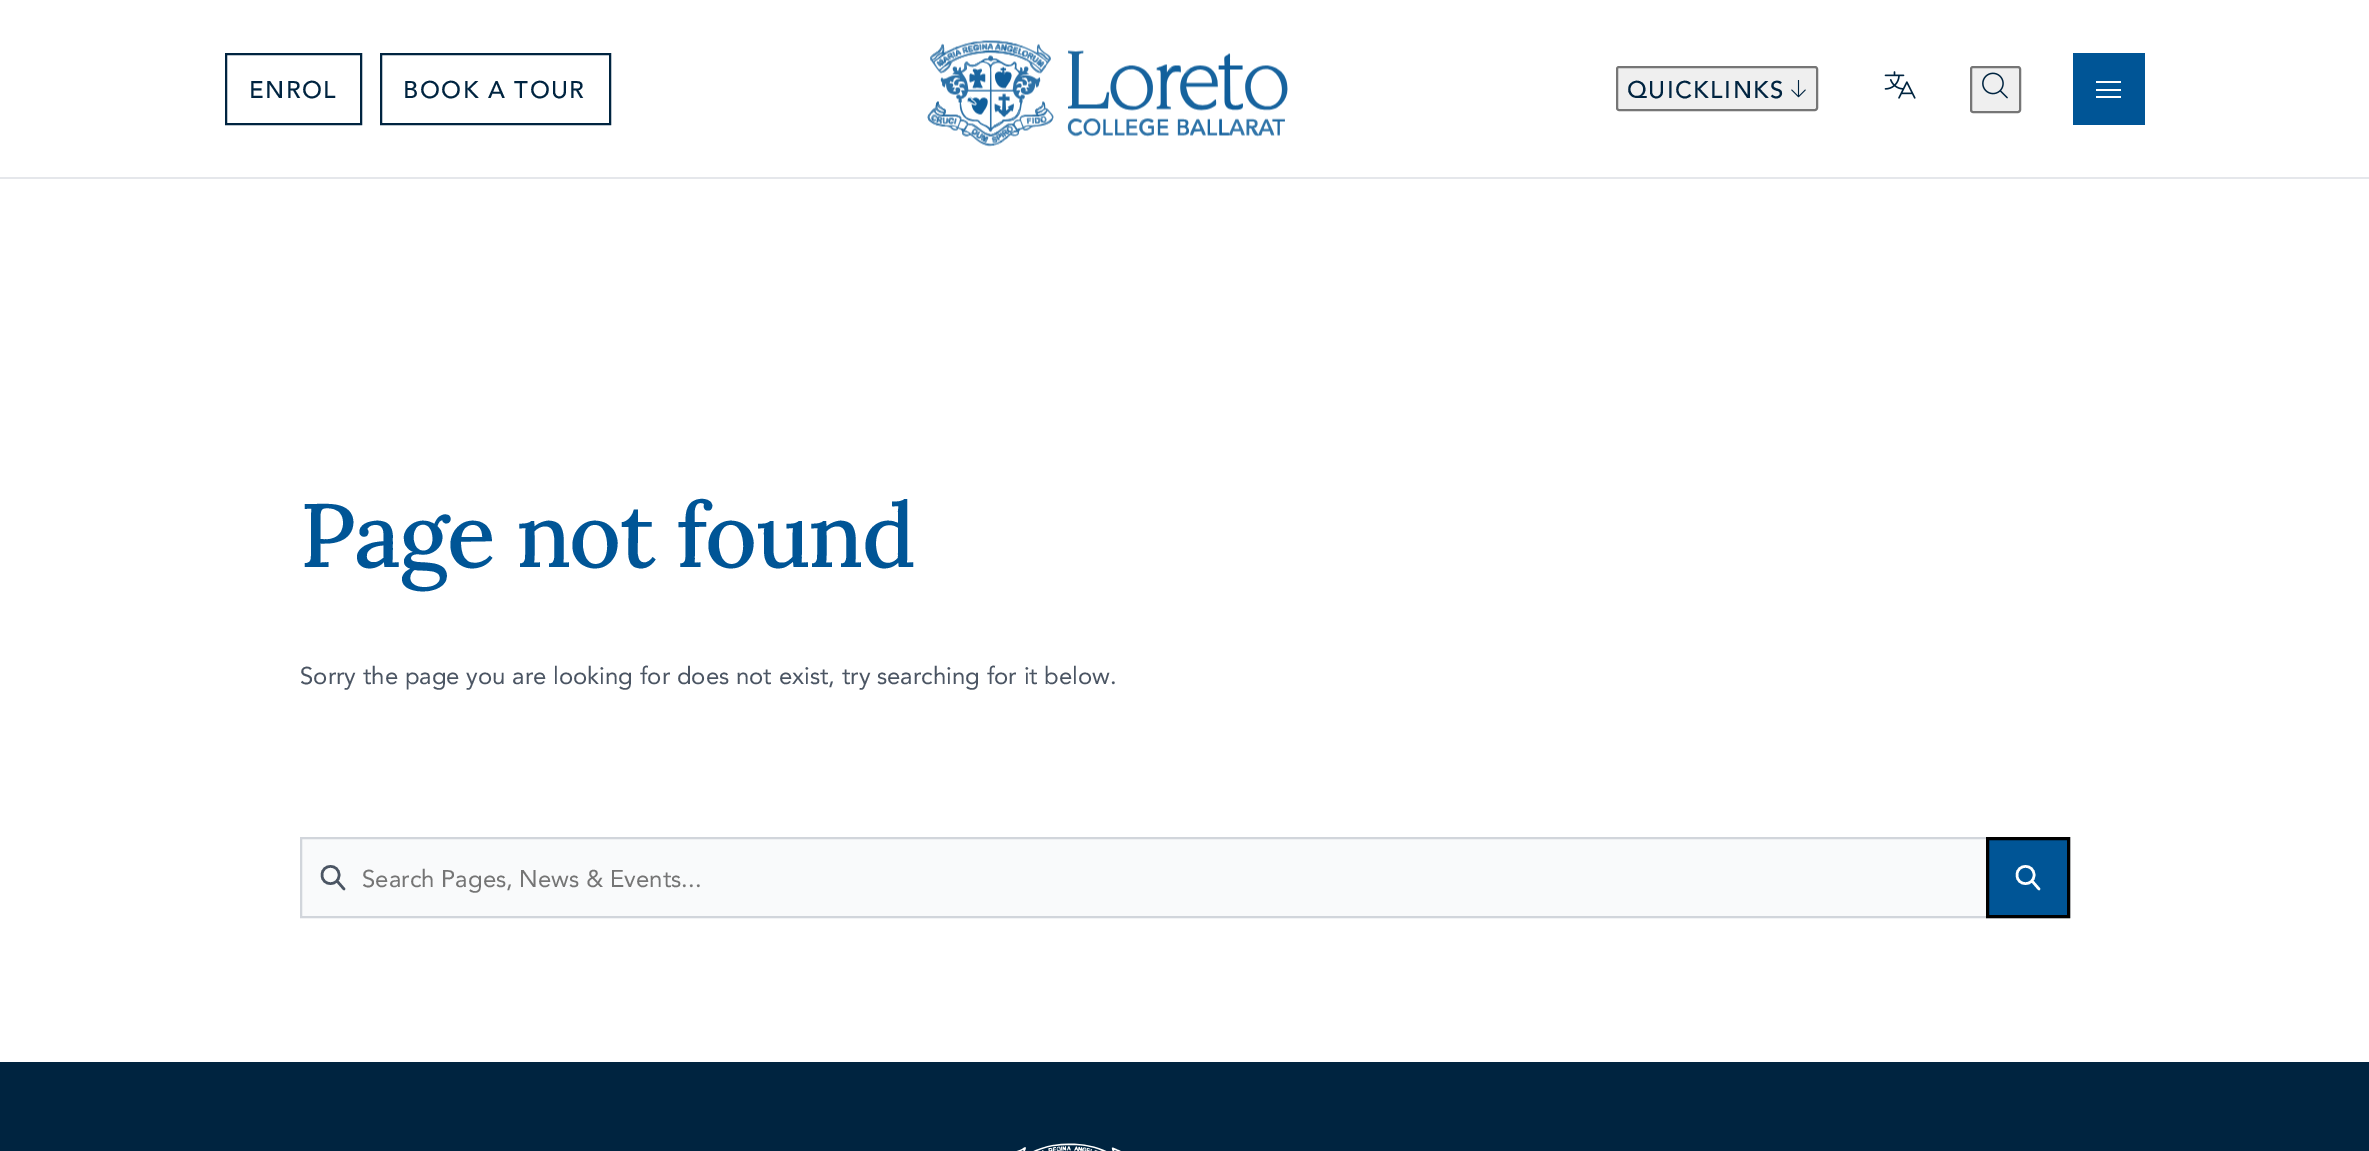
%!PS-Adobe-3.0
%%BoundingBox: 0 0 2369 1151
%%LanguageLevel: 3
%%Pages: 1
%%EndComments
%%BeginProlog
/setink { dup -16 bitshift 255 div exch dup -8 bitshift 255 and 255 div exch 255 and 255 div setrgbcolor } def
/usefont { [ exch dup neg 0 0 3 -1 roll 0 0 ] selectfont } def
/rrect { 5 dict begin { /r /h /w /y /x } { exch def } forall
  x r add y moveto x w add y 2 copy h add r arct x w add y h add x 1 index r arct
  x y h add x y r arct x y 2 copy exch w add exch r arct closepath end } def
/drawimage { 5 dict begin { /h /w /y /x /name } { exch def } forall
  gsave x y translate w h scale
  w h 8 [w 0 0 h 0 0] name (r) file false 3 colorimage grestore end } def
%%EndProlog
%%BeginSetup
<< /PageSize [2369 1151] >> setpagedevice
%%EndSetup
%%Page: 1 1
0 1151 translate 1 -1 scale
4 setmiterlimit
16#FFFFFF setink
0 0 2369 1151 rectfill
16#E5E7EB setink
0 177 2369 2 rectfill
16#002440 setink
2 setlinewidth
226 54 135 70 rectstroke
/Avenir-Medium 24 usefont
249 98 moveto 1.5 0 (ENROL) ashow
381 54 229 70 rectstroke
403 98 moveto 1.5 0 (BOOK A TOUR) ashow
(img1.raw) 927 40 361 107 drawimage
16#EFEFEF setink
1617 67 200 43 2 rrect gsave fill grestore
16#767676 setink
stroke
16#002440 setink
1627 98 moveto 1.5 0 (QUICKLINKS) ashow
(img2.raw) 1791 80 15 18 drawimage
(img3.raw) 1884 71 32 28 drawimage
16#EFEFEF setink
1971 67 49 45 2 rrect gsave fill grestore
16#767676 setink
stroke
(img4.raw) 1982 72 26 27 drawimage
[
    [2073 53 72 72 16#005596]
    [2096 89 25 2 16#FFFFFF]
    [2096 81 25 2 16#FFFFFF]
    [2096 96 25 2 16#FFFFFF]
] { aload pop setink rectfill } forall
/Lora-Medium 90 usefont
16#005596 setink
300 567 moveto -1.75 0 (Page not found) ashow
/Avenir-Regular 24 usefont
16#4B5563 setink
300 684 moveto (Sorry the page you are looking for does not exist, try searching for it below.) show
16#F9FAFB setink
302 839 1684 77 rectfill
16#D1D5DB setink
301 838 1768 79 rectstroke
16#4B5563 setink
2.5 setlinewidth
1 setlinecap
1 setlinejoin
344 889 moveto 337 881 lineto 339 875 moveto 339 886.5 322 886.5 322 875 curveto 322 863.5 339 863.5 339 875 curveto closepath stroke
16#757575 setink
362 887 moveto (Search Pages, News & Events...) show
16#005596 setink
1987.5 838.5 moveto 2068.5 838.5 lineto 2068.5 916.5 lineto 1987.5 916.5 lineto closepath gsave fill grestore
16#000000 setink
3 setlinewidth
0 setlinecap
0 setlinejoin
stroke
16#FFFFFF setink
2.5 setlinewidth
1 setlinecap
1 setlinejoin
2039 889 moveto 2032 881 lineto 2034 875 moveto 2034 886.5 2017 886.5 2017 875 curveto 2017 863.5 2034 863.5 2034 875 curveto closepath stroke
16#002440 setink
0 1062 2369 89 rectfill
(img5.raw) 1016 1143 105 8 drawimage
showpage
%%EOF
